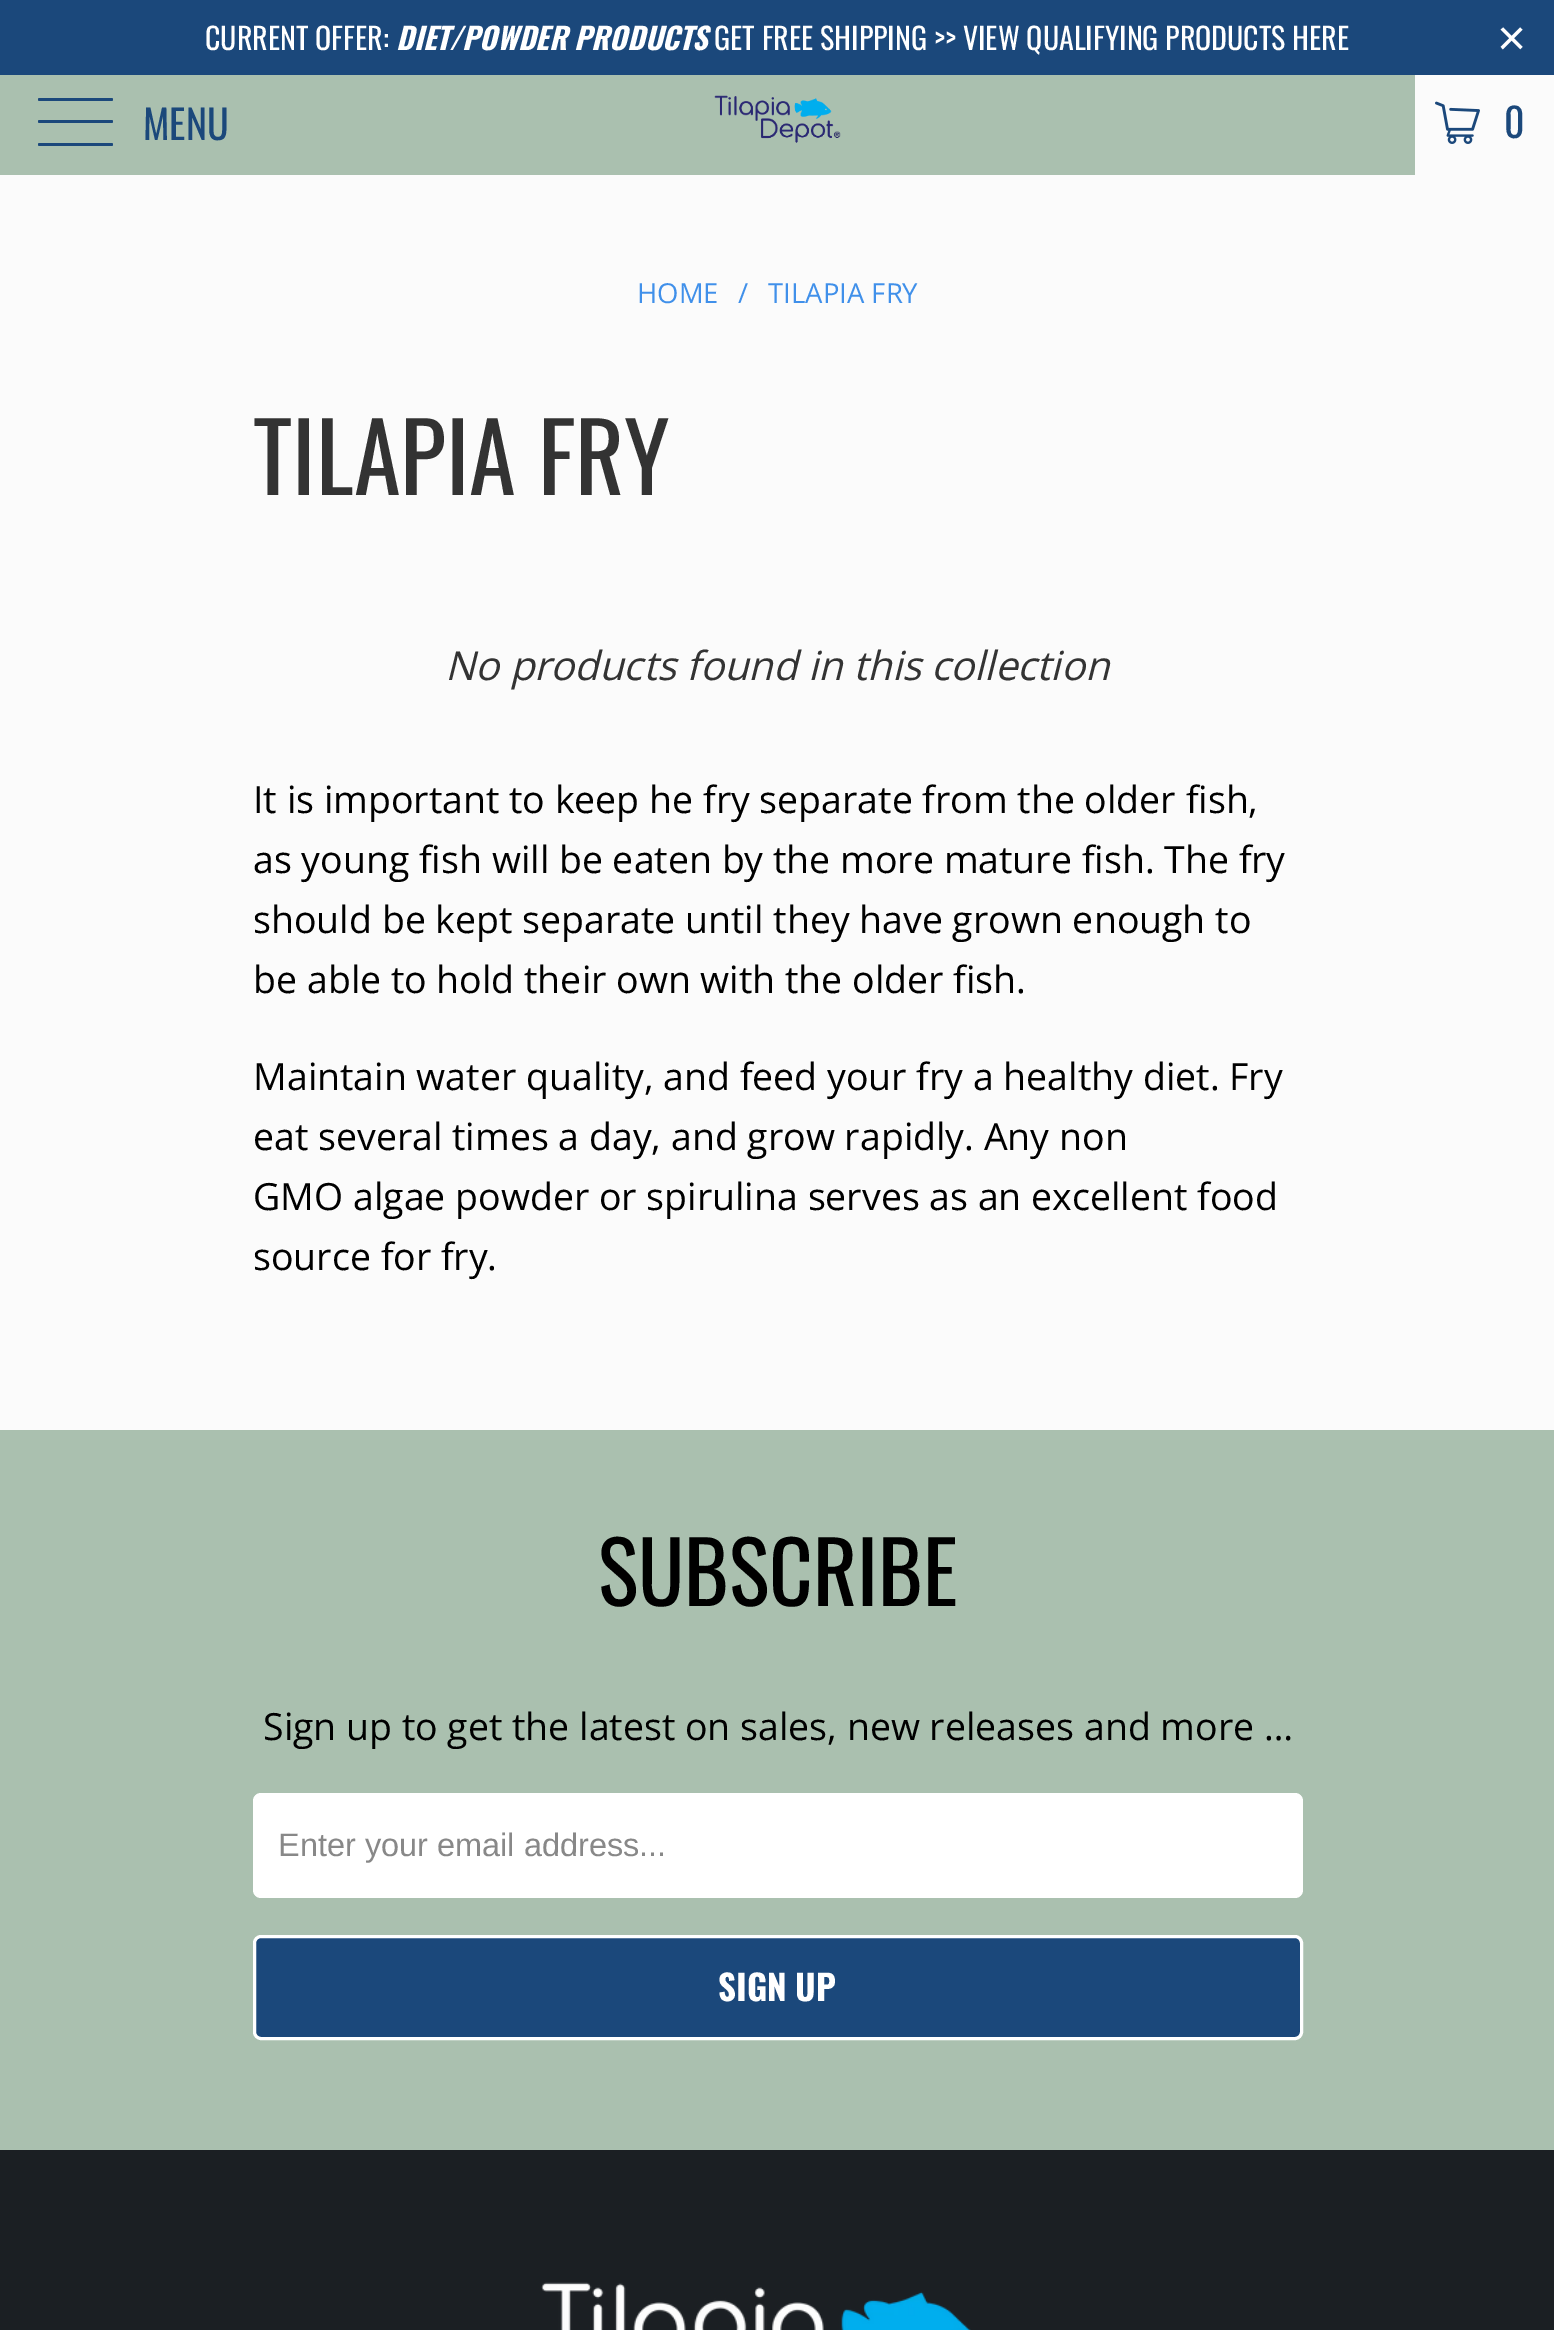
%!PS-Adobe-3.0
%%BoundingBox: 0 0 1554 2330
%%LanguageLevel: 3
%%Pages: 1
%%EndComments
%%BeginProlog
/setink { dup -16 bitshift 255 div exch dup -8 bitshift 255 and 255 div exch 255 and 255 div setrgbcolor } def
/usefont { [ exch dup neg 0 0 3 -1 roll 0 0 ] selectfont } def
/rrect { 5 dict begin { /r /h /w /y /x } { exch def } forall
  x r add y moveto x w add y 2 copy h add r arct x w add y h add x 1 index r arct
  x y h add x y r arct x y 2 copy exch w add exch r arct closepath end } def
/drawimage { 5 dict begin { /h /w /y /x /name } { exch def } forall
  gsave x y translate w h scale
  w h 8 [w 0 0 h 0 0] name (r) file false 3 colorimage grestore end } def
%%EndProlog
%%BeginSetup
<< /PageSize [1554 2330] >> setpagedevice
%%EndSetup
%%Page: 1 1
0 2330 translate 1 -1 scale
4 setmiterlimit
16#FBFBFB setink
0 0 1554 2330 rectfill
16#1B487B setink
0 0 1554 75 rectfill
/Oswald-Regular 30 usefont
16#FFFFFF setink
205 50 moveto (CURRENT OFFER:) show
/Oswald-BoldItalic 30 usefont
396 50 moveto (DIET/POWDER PRODUCTS) show
/Oswald-Regular 30 usefont
714 50 moveto (GET FREE SHIPPING >> VIEW QUALIFYING PRODUCTS HERE) show
/LiberationSans-Regular 50 usefont
1497 55 moveto (×) show
16#AAC0AF setink
0 75 1415 100 rectfill
16#1B487B setink
38 98 75 3 1.5 rrect fill
38 120 75 3 1.5 rrect fill
38 143 75 3 1.5 rrect fill
/Oswald-Regular 40 usefont
143 140 moveto (MENU) show
(img1.raw) 714 95 127 48 drawimage
(img2.raw) 1435 101 45 43 drawimage
1504 138 moveto 5 0 (0) ashow
/OpenSans-Regular 27.5 usefont
16#4090EA setink
[
    [(HOME) 637 303]
    [(/) 738 303]
    [(TILAPIA FRY) 768 303]
] { aload pop moveto show } forall
/Oswald-Regular 95 usefont
16#333333 setink
253 495 moveto (TILAPIA FRY) show
/OpenSans-Italic 40 usefont
445 680 moveto (No products found in this collection) show
/OpenSans-Regular 37.5 usefont
16#000000 setink
[
    [(It is important to keep he fry separate from the older fish,) 253 813]
    [(as young fish will be eaten by the more mature fish. The fry) 253 873]
    [(should be kept separate until they have grown enough to) 253 933]
    [(be able to hold their own with the older fish.) 253 993]
    [(Maintain water quality, and feed your fry a healthy diet. Fry) 253 1090]
    [(eat several times a day, and grow rapidly. Any non) 253 1150]
    [(GMO algae powder or spirulina serves as an excellent food) 253 1210]
    [(source for fry.) 253 1270]
] { aload pop moveto show } forall
16#AAC0AF setink
0 1430 1554 720 rectfill
/Oswald-Regular 85 usefont
16#000000 setink
598 1606 moveto (SUBSCRIBE) show
/OpenSans-Regular 37.5 usefont
263 1740 moveto (Sign up to get the latest on sales, new releases and more …) show
16#FFFFFF setink
253 1793 1050 105 8 rrect fill
/LiberationSans-Regular 32.5 usefont
16#888888 setink
278 1856 moveto (Enter your email address...) show
16#1B487B setink
254.5 1936.5 1047 102 6.5 rrect gsave fill grestore
16#FFFFFF setink
3 setlinewidth
stroke
/Oswald-Bold 35 usefont
718 2001 moveto (SIGN UP) show
16#1B1F23 setink
0 2150 1554 180 rectfill
(img3.raw) 541 2282 430 48 drawimage
showpage
%%EOF
